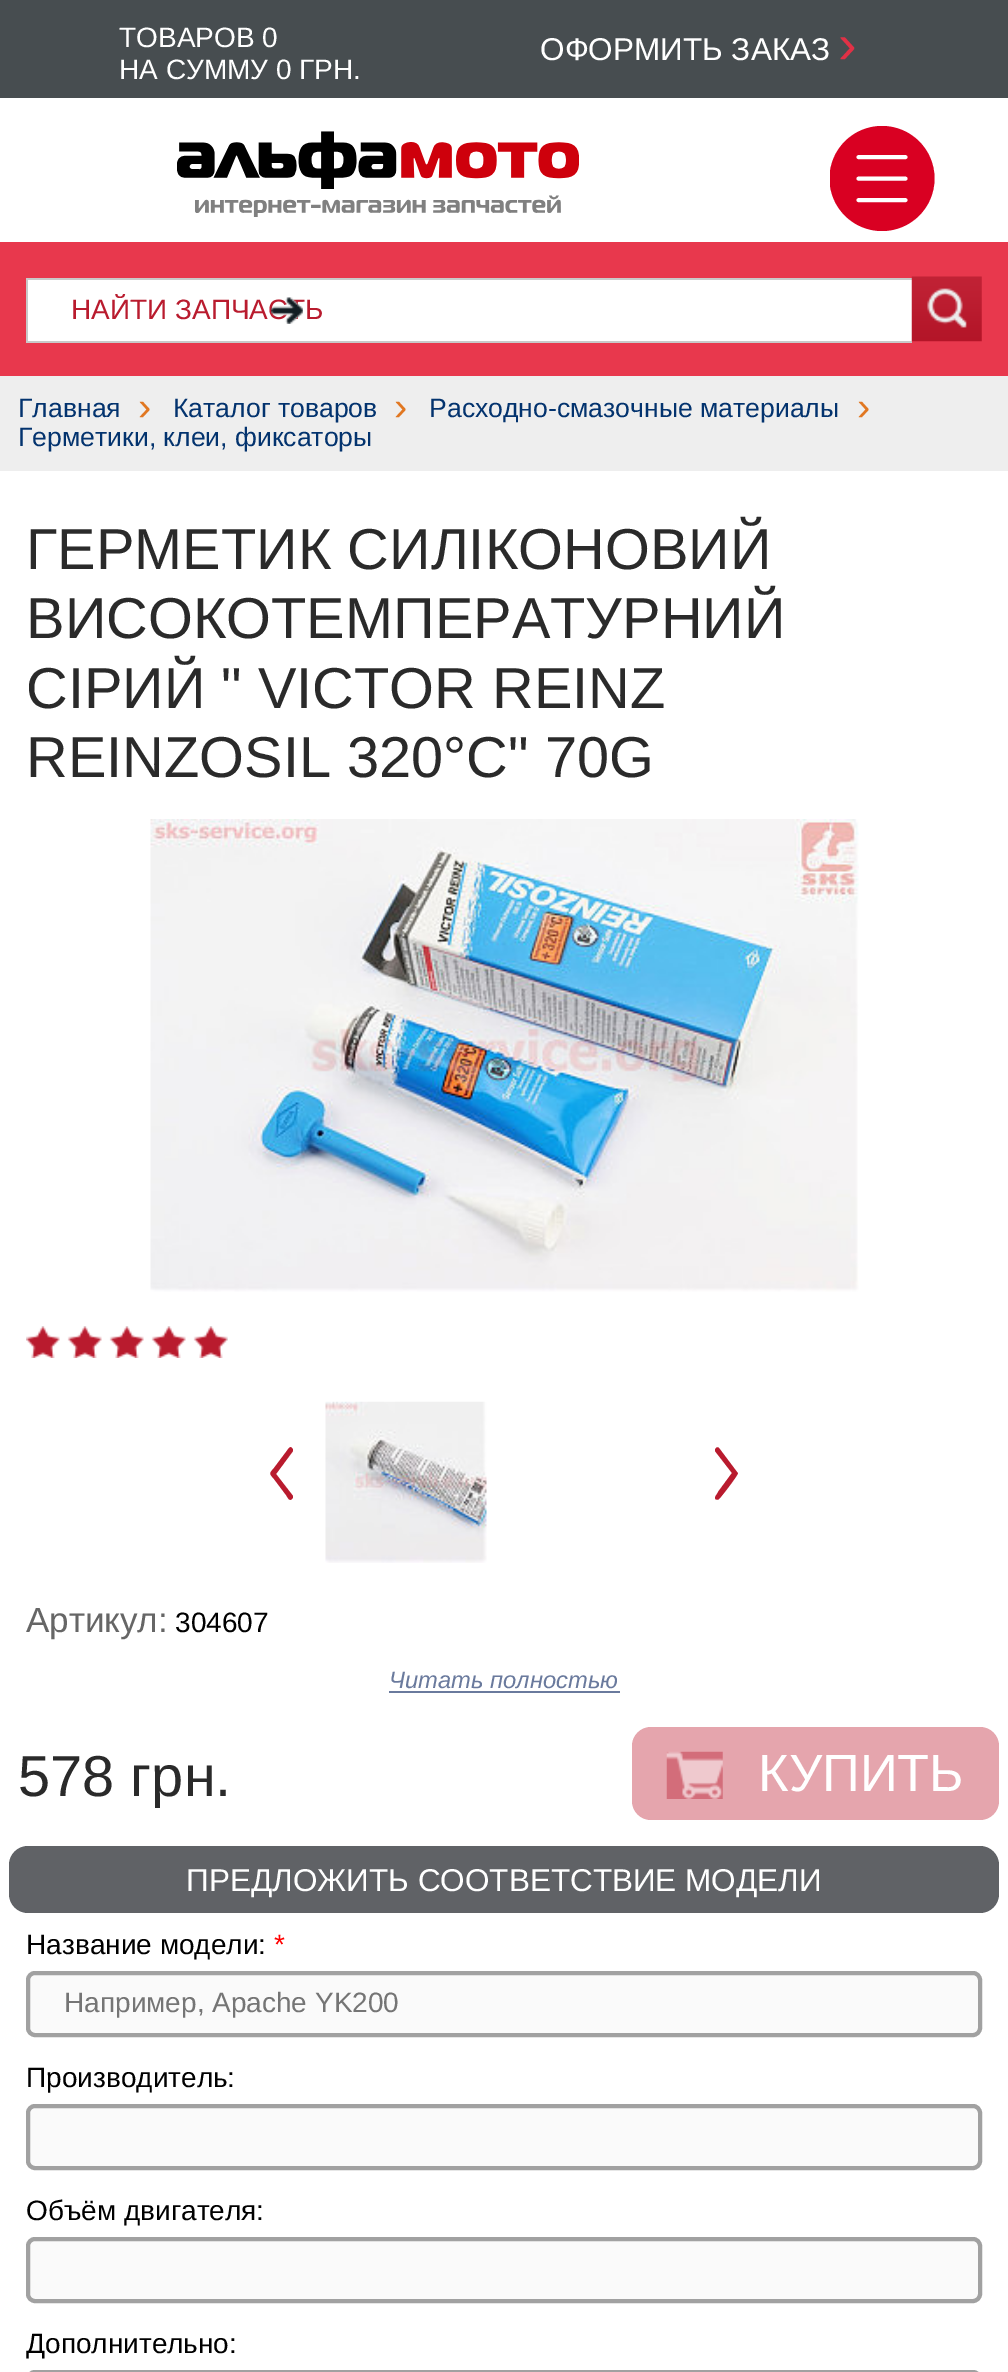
%!PS-Adobe-3.0
%%BoundingBox: 0 0 1008 2372
%%LanguageLevel: 3
%%Pages: 1
%%EndComments
%%BeginProlog
/setink { dup -16 bitshift 255 div exch dup -8 bitshift 255 and 255 div exch 255 and 255 div setrgbcolor } def
/usefont { [ exch dup neg 0 0 3 -1 roll 0 0 ] selectfont } def
/disc { newpath 0 360 arc closepath } def
/rrect { 5 dict begin { /r /h /w /y /x } { exch def } forall
  x r add y moveto x w add y 2 copy h add r arct x w add y h add x 1 index r arct
  x y h add x y r arct x y 2 copy exch w add exch r arct closepath end } def
/drawimage { 5 dict begin { /h /w /y /x /name } { exch def } forall
  gsave x y translate w h scale
  w h 8 [w 0 0 h 0 0] name (r) file false 3 colorimage grestore end } def
%%EndProlog
%%BeginSetup
<< /PageSize [1008 2372] >> setpagedevice
%%EndSetup
%%Page: 1 1
0 2372 translate 1 -1 scale
4 setmiterlimit
16#FFFFFF setink
0 0 1008 2372 rectfill
16#474D50 setink
0 0 1008 98 rectfill
/LiberationSans-Regular 28 usefont
16#FFFFFF setink
119 47 moveto (ТОВАРОВ 0) show
119 79 moveto (НА СУММУ 0 ГРН.) show
/LiberationSans-Regular 31.5 usefont
540 60 moveto (ОФОРМИТЬ ЗАКАЗ) show
/LiberationSans-Regular 56 usefont
16#E13146 setink
838 63 moveto (›) show
(img1.raw) 177 131 402 86 drawimage
gsave
830 126 105 105 rectclip
16#D90022 setink
882 178.5 52.5 disc fill
grestore
16#FFFFFF setink
3.9 setlinewidth
1 setlinecap
858.5 157 moveto 905.5 157 lineto 858.5 178.5 moveto 905.5 178.5 lineto 858.5 200 moveto 905.5 200 lineto stroke
[
    [0 242 1008 134 16#E8384D]
    [28 280 884 61 16#FFFFFF]
    [26 278 886 2 16#C9C9C9]
    [26 341 886 2 16#C9C9C9]
    [26 278 2 65 16#C9C9C9]
] { aload pop setink rectfill } forall
gsave
63 294 845 32 rectclip
/LiberationSans-Regular 28 usefont
16#B91B2E setink
71 319 moveto (НАЙТИ ЗАПЧАСТЬ) show
grestore
(img2.raw) 271 297 32 27 drawimage
(img3.raw) 911 276 71 66 drawimage
16#EEEEEE setink
0 376 1008 95 rectfill
/LiberationSans-Regular 26.6 usefont
16#03336E setink
18 417 moveto (Главная) show
/LiberationSans-Regular 40 usefont
16#E17721 setink
138 420 moveto (›) show
/LiberationSans-Regular 26.6 usefont
16#03336E setink
173 417 moveto (Каталог товаров) show
/LiberationSans-Regular 40 usefont
16#E17721 setink
394 420 moveto (›) show
/LiberationSans-Regular 26.6 usefont
16#03336E setink
429 417 moveto (Расходно-смазочные материалы) show
/LiberationSans-Regular 40 usefont
16#E17721 setink
857 420 moveto (›) show
/LiberationSans-Regular 26.6 usefont
16#03336E setink
18 446 moveto (Герметики, клеи, фиксаторы) show
/LiberationSans-Regular 57.75 usefont
16#2A2A2A setink
[
    [(ГЕРМЕТИК СИЛІКОНОВИЙ) 26 569]
    [(ВИСОКОТЕМПЕРАТУРНИЙ) 26 638]
    [(СІРИЙ " VICTOR REINZ) 26 708]
    [(REINZOSIL 320°C" 70G) 26 777]
] { aload pop moveto show } forall
(img4.raw) 150 819 709 473 drawimage
(img5.raw) 26 1326 202 32 drawimage
(img6.raw) 26 1326 202 32 drawimage
(img7.raw) 325 1401 162 162 drawimage
16#B91B2E setink
293 1496 moveto 276 1474 lineto 293 1451 lineto 293 1450 293 1449 292 1448 curveto 290 1445 287 1451 286 1452 curveto 274 1468 lineto 269 1474 269 1473 274 1479 curveto 286 1495 lineto 287 1496 289 1502 292 1499 curveto 293 1498 293 1497 293 1496 curveto closepath fill
737 1472 moveto 719 1448 lineto 718 1447 717 1447 716 1448 curveto 715 1449 715 1450 715 1451 curveto 732 1473 lineto 718 1492 lineto 718 1493 715 1496 715 1498 curveto 715 1500 718 1500 719 1499 curveto 722 1496 738 1475 738 1473 curveto closepath fill
/LiberationSans-Regular 35 usefont
16#666666 setink
26 1632 moveto (Артикул:) show
/LiberationSans-Regular 28 usefont
16#000000 setink
175 1632 moveto (304607) show
/LiberationSans-Italic 23.75 usefont
16#6A7A9D setink
389 1688 moveto (Читать полностью) show
389 1691 231 2 rectfill
/LiberationSans-Regular 57.75 usefont
16#2A2A2A setink
18 1796 moveto (578 грн.) show
16#E5A5AD setink
632 1727 367 93 19 rrect fill
(img8.raw) 666 1751 57 48 drawimage
/LiberationSans-Regular 52.5 usefont
16#FFFFFF setink
758 1791 moveto (КУПИТЬ) show
16#606266 setink
9 1846 990 67 19 rrect fill
/LiberationSans-Regular 31.5 usefont
16#FFFFFF setink
186 1891 moveto (ПРЕДЛОЖИТЬ СООТВЕТСТВИЕ МОДЕЛИ) show
/LiberationSans-Regular 28 usefont
16#000000 setink
26 1954 moveto (Название модели:) show
16#FF0000 setink
274 1954 moveto (*) show
16#FAFAFA setink
28 1973 952 62 7 rrect gsave fill grestore
16#A1A1A1 setink
4 setlinewidth
0 setlinecap
stroke
16#757575 setink
64 2012 moveto (Например, Apache YK200) show
16#000000 setink
26 2087 moveto (Производитель:) show
16#FAFAFA setink
28 2106 952 62 7 rrect gsave fill grestore
16#A1A1A1 setink
stroke
16#000000 setink
26 2220 moveto (Объём двигателя:) show
16#FAFAFA setink
28 2239 952 62 7 rrect gsave fill grestore
16#A1A1A1 setink
stroke
16#000000 setink
26 2353 moveto (Дополнительно:) show
16#A1A1A1 setink
28 2372 952 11 7 rrect stroke
showpage
%%EOF
